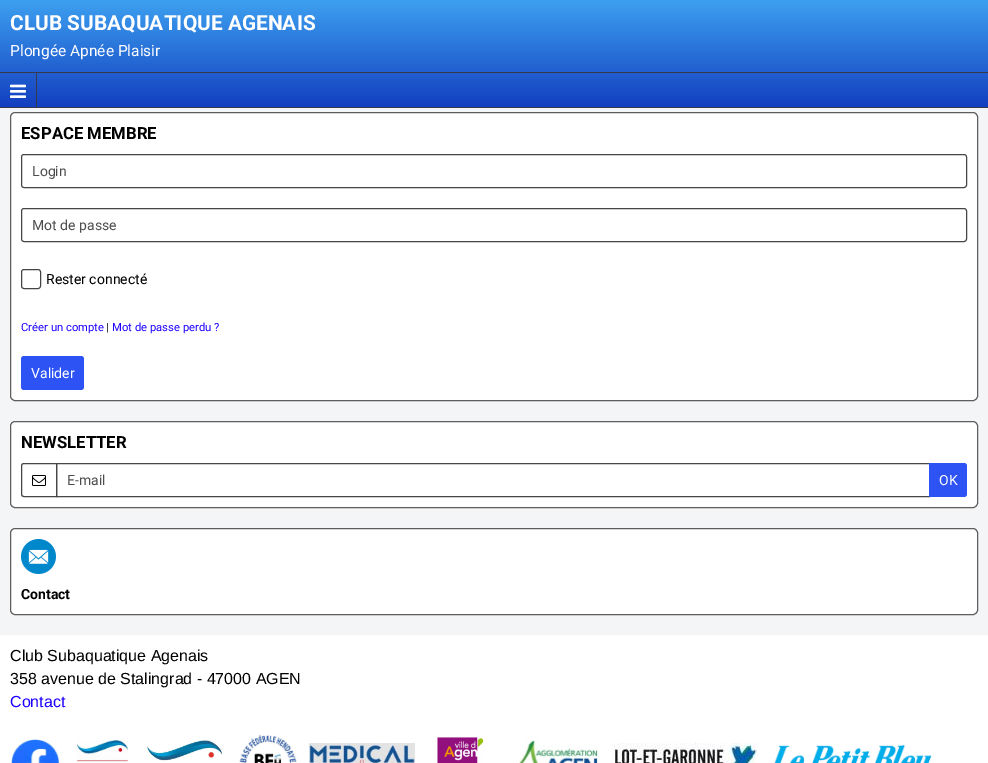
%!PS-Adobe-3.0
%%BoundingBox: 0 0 988 763
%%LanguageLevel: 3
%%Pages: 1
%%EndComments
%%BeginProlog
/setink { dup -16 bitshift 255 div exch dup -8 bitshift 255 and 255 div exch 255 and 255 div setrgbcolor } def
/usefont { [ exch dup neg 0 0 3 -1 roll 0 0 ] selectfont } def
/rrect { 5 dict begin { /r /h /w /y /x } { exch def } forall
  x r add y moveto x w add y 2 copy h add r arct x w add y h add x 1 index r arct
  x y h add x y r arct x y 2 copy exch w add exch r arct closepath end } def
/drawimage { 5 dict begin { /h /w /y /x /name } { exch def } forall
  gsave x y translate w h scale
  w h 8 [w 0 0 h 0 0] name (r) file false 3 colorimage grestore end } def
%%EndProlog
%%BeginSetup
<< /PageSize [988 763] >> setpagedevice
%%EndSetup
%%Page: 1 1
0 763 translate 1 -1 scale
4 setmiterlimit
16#FFFFFF setink
0 0 988 763 rectfill
gsave 0 0 moveto 988 0 lineto 988 107 lineto 0 107 lineto closepath clip newpath
<< /ShadingType 2 /ColorSpace /DeviceRGB /Coords [494 0 494 108] /Extend [true true] /Function << /FunctionType 2 /Domain [0 1] /C0 [0.239 0.627 0.941] /C1 [0.071 0.243 0.753] /N 1 >> >> shfill grestore
/Roboto-Bold 20.9 usefont
10 30 moveto (CLUB SUBAQUATIQUE AGENAIS) show
/Roboto-Regular 15.5 usefont
10 56 moveto (Plongée Apnée Plaisir) show
16#38384C setink
0 72 988 1 rectfill
0 107 988 1 rectfill
37 73 moveto 37 107 lineto 36 106 lineto 36 74 lineto closepath fill
(img1.raw) 10 84 16 14 drawimage
16#F4F5F6 setink
0 108 988 527 rectfill
16#FFFFFF setink
10.5 112.5 967 288 4.5 rrect gsave fill grestore
16#5E5E5E setink
stroke
/Roboto-Bold 16.75 usefont
16#000000 setink
21 139 moveto (ESPACE MEMBRE) show
16#464646 setink
21.5 154.5 945 33 2.5 rrect stroke
/Roboto-Regular 14 usefont
16#4D4D4D setink
32 176 moveto (Login) show
16#464646 setink
21.5 208.5 945 33 2.5 rrect stroke
16#4D4D4D setink
32 230 moveto (Mot de passe) show
16#464646 setink
21.5 269.5 19 19 2.5 rrect stroke
16#000000 setink
46 284 moveto (Rester connecté) show
/Roboto-Regular 11.25 usefont
16#1C00FF setink
21 331 moveto (Créer un compte) show
16#000000 setink
106 331 moveto (|) show
16#1C00FF setink
112 331 moveto (Mot de passe perdu ?) show
16#2D53F5 setink
21 356 63 34 3 rrect fill
/Roboto-Regular 14 usefont
16#FFFFFF setink
31 378 moveto (Valider) show
10.5 421.5 967 86 4.5 rrect gsave fill grestore
16#5E5E5E setink
stroke
/Roboto-Bold 16.75 usefont
16#000000 setink
21 448 moveto (NEWSLETTER) show
16#464646 setink
24 463.5 moveto 56.5 463.5 lineto 56.5 496.5 lineto 24 496.5 lineto 22.5 496.5 21.5 495.5 21.5 494 curveto 21.5 466 lineto 21.5 464.5 22.5 463.5 24 463.5 curveto closepath stroke
(img2.raw) 32 475 14 11 drawimage
56.5 463.5 873 33 rectstroke
/Roboto-Regular 14 usefont
16#4D4D4D setink
67 485 moveto (E-mail) show
16#2D53F5 setink
929 463 moveto 964 463 lineto 965.5 463 967 464.5 967 466 curveto 967 494 lineto 967 495.5 965.5 497 964 497 curveto 929 497 lineto closepath fill
16#FFFFFF setink
939 485 moveto (OK) show
10.5 528.5 967 86 4.5 rrect gsave fill grestore
16#5E5E5E setink
stroke
(img3.raw) 21 539 35 35 drawimage
/Roboto-Bold 14 usefont
16#000000 setink
21 599 moveto (Contact) show
/LiberationSans-Regular 16 usefont
10 661 moveto (Club Subaquatique Agenais) show
10 684 moveto (358 avenue de Stalingrad - 47000 AGEN) show
16#1C00FF setink
10 707 moveto (Contact) show
(img4.raw) 11 739 49 24 drawimage
(img5.raw) 77 740 51 22 drawimage
(img6.raw) 146 740 77 21 drawimage
(img7.raw) 239 735 58 28 drawimage
(img8.raw) 309 743 106 20 drawimage
(img9.raw) 437 737 47 26 drawimage
(img10.raw) 519 737 80 26 drawimage
(img11.raw) 611 743 147 20 drawimage
(img12.raw) 774 745 158 18 drawimage
showpage
%%EOF
